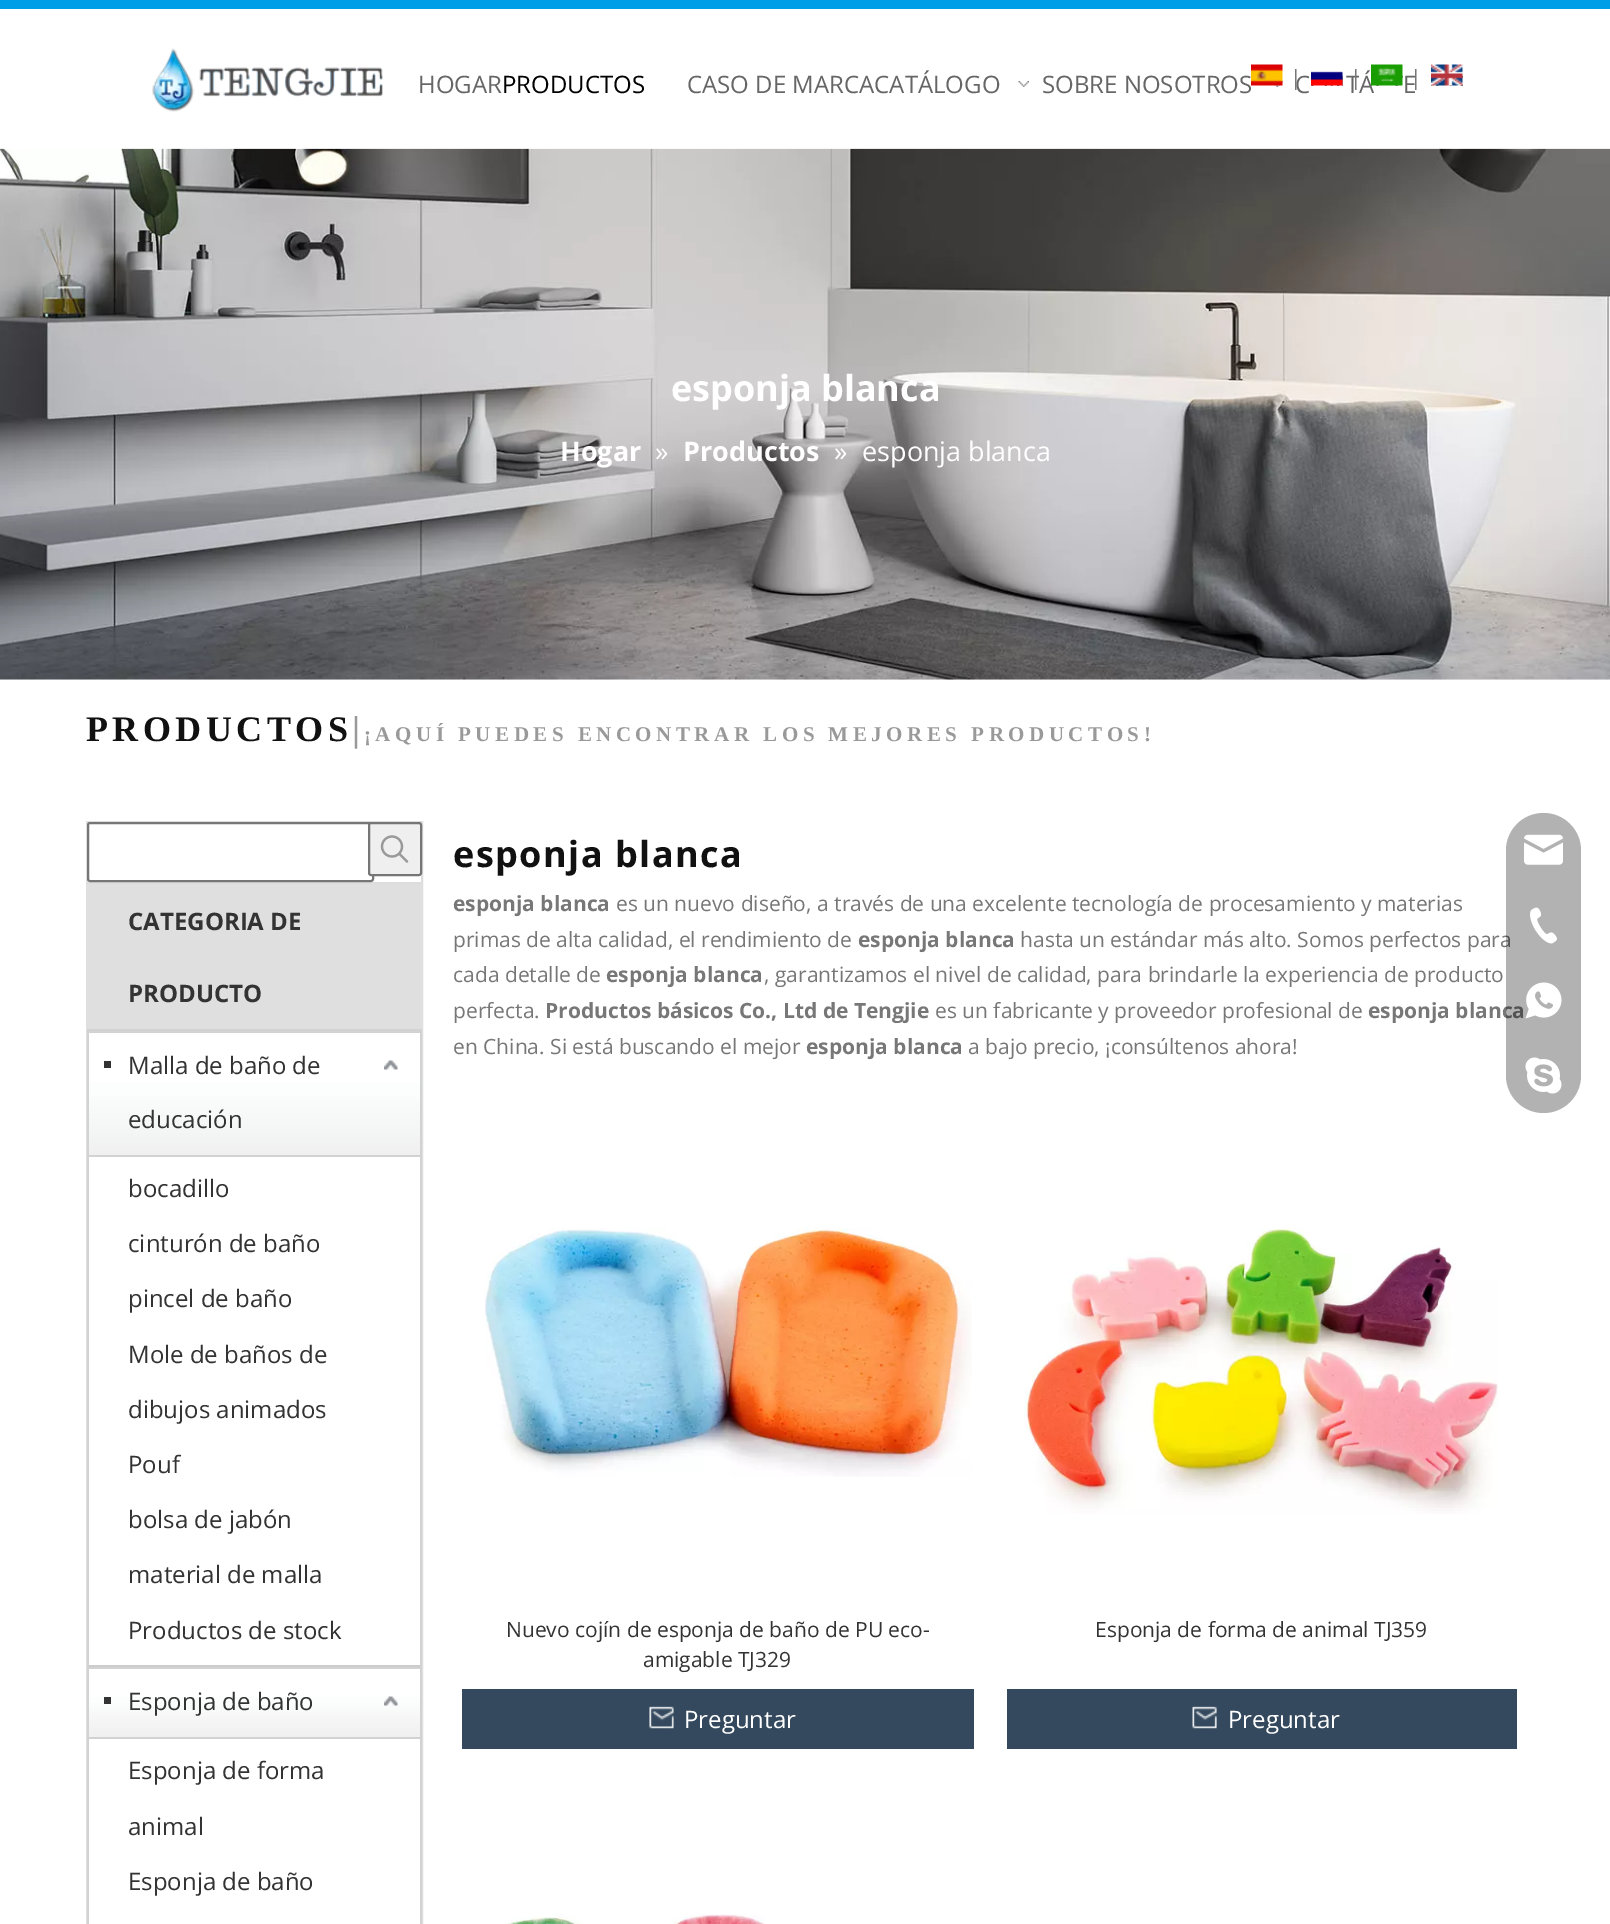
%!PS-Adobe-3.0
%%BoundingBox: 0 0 1610 1924
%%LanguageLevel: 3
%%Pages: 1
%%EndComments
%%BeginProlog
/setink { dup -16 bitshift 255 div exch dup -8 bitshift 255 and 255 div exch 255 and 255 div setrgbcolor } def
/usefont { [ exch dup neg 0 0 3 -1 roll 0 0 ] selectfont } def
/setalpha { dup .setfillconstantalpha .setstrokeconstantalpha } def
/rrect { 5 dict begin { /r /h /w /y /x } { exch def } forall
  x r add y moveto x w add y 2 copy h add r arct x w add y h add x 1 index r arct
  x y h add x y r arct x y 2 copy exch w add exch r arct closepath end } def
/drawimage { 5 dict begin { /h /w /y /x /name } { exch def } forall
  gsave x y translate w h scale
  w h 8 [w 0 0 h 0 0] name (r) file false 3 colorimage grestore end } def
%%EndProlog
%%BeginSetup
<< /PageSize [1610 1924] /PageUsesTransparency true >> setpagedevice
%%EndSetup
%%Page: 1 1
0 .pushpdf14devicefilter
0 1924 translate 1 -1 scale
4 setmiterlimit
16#FFFFFF setink
0 0 1610 1924 rectfill
16#F5F5F5 setink
0 679 1610 1 rectfill
(img8.raw) 0 148 1610 532 drawimage
0.78 setalpha
16#FFFFFF setink
0 148 1610 1 rectfill
1 setalpha
16#009EE7 setink
0 0 1610 9 rectfill
(img1.raw) 152 48 231 64 drawimage
/OpenSans-Regular 24 usefont
16#666666 setink
1042 93 moveto (SOBRE NOSOTROS) show
(img7.raw) 1274 81 9 6 drawimage
(img2.raw) 1251 64 32 22 drawimage
1295 93 moveto (C) show
/OpenSans-Regular 21 usefont
16#777777 setink
1290 85 moveto (|) show
(img3.raw) 1311 71 32 15 drawimage
/OpenSans-Regular 24 usefont
16#666666 setink
1346 93 moveto (TÁ) show
/OpenSans-Regular 21 usefont
16#777777 setink
1350 85 moveto (|) show
(img4.raw) 1371 64 32 22 drawimage
/OpenSans-Regular 24 usefont
16#666666 setink
1403 93 moveto (E) show
/OpenSans-Regular 21 usefont
16#777777 setink
1410 85 moveto (|) show
(img5.raw) 1431 64 32 22 drawimage
/OpenSans-Regular 24 usefont
16#666666 setink
418 93 moveto (HOGAR) show
16#000000 setink
502 93 moveto (PRODUCTOS) show
16#666666 setink
687 93 moveto (CASO DE MARCACATÁLOGO) show
(img6.raw) 1018 81 11 6 drawimage
/OpenSans-Bold 36 usefont
16#FFFFFF setink
671 401 moveto (esponja blanca) show
/OpenSans-Bold 27 usefont
560 461 moveto (Hogar) show
/OpenSans-Regular 27 usefont
655 461 moveto (») show
/OpenSans-Bold 27 usefont
683 461 moveto (Productos) show
/OpenSans-Regular 27 usefont
834 461 moveto (») show
862 461 moveto (esponja blanca) show
/LiberationSerif-Bold 36 usefont
16#111111 setink
86 741 moveto 4.5 0 (PRODUCTOS) ashow
16#999999 setink
352 741 moveto 4.5 0 (|) ashow
/LiberationSerif-Bold 21 usefont
364 741 moveto 4.5 0 (¡AQUÍ PUEDES ENCONTRAR LOS MEJORES PRODUCTOS!) ashow
16#DDDDDD setink
2 setlinewidth
87 822 335 61 rectstroke
16#FFFFFF setink
88 823 285 58 2 rrect gsave fill grestore
16#767676 setink
stroke
16#EFEFEF setink
369 823 52 52 2 rrect gsave fill grestore
16#767676 setink
stroke
(img9.raw) 380 835 29 28 drawimage
16#DFDFDF setink
87 885 335 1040 rectstroke
88 886 333 143 rectfill
/OpenSans-Bold 24 usefont
16#333333 setink
128 930 moveto (CATEGORIA DE) show
128 1002 moveto (PRODUCTO) show
[
    [87 1029 335 2 16#D2D2D2]
    [420 1029 2 895 16#D2D2D2]
    [87 1029 2 895 16#D2D2D2]
    [89 1665 331 2 16#CCCCCC]
    [104 1061 7 7 16#333333]
] { aload pop setink rectfill } forall
gsave 89 1083 moveto 420 1083 lineto 420 1155 lineto 89 1155 lineto closepath clip newpath
<< /ShadingType 2 /ColorSpace /DeviceRGB /Coords [254 1032 254 1155] /Extend [true true] /Function << /FunctionType 3 /Domain [0 1] /Functions [<< /FunctionType 2 /Domain [0 1] /C0 [1 1 1] /C1 [0.988 0.992 0.992] /N 1 >> << /FunctionType 2 /Domain [0 1] /C0 [0.988 0.992 0.992] /C1 [0.941 0.941 0.941] /N 1 >>] /Bounds [0.5] /Encode [0 1 0 1] >> >> shfill grestore
16#D2D2D2 setink
89 1031 331 2 rectfill
89 1155 331 2 rectfill
/OpenSans-Regular 24 usefont
16#333333 setink
128 1074 moveto (Malla de baño de) show
128 1128 moveto (educación) show
(img10.raw) 384 1060 14 10 drawimage
[
    [(bocadillo) 128 1197]
    [(cinturón de baño) 128 1252]
    [(pincel de baño) 128 1307]
    [(Mole de baños de) 128 1363]
    [(dibujos animados) 128 1418]
    [(Pouf) 128 1473]
    [(bolsa de jabón) 128 1528]
    [(material de malla) 128 1583]
    [(Productos de stock) 128 1639]
] { aload pop moveto show } forall
gsave 89 1697 moveto 420 1697 lineto 420 1737 lineto 89 1737 lineto closepath clip newpath
<< /ShadingType 2 /ColorSpace /DeviceRGB /Coords [254 1668 254 1737] /Extend [true true] /Function << /FunctionType 3 /Domain [0 1] /Functions [<< /FunctionType 2 /Domain [0 1] /C0 [1 1 1] /C1 [0.988 0.992 0.992] /N 1 >> << /FunctionType 2 /Domain [0 1] /C0 [0.988 0.992 0.992] /C1 [0.941 0.941 0.941] /N 1 >>] /Bounds [0.5] /Encode [0 1 0 1] >> >> shfill grestore
[
    [104 1697 7 7 16#333333]
    [89 1667 331 2 16#D2D2D2]
    [89 1737 331 2 16#D2D2D2]
] { aload pop setink rectfill } forall
16#333333 setink
128 1710 moveto (Esponja de baño) show
(img11.raw) 384 1696 14 10 drawimage
[
    [(Esponja de forma) 128 1779]
    [(animal) 128 1835]
    [(Esponja de baño) 128 1890]
] { aload pop moveto show } forall
/OpenSans-Bold 36 usefont
16#111111 setink
453 867 moveto 1.5 0 (esponja blanca) ashow
/OpenSans-Bold 21 usefont
16#777777 setink
453 911 moveto (esponja blanca) show
/OpenSans-Regular 21 usefont
616 911 moveto (es un nuevo diseño, a través de una excelente tecnología de procesamiento y materias) show
453 947 moveto (primas de alta calidad, el rendimiento de) show
/OpenSans-Bold 21 usefont
858 947 moveto (esponja blanca) show
/OpenSans-Regular 21 usefont
1020 947 moveto (hasta un estándar más alto. Somos perfectos para) show
453 982 moveto (cada detalle de) show
/OpenSans-Bold 21 usefont
606 982 moveto (esponja blanca) show
/OpenSans-Regular 21 usefont
764 982 moveto (, garantizamos el nivel de calidad, para brindarle la experiencia de producto) show
453 1018 moveto (perfecta.) show
/OpenSans-Bold 21 usefont
545 1018 moveto (Productos básicos Co., Ltd de Tengjie) show
/OpenSans-Regular 21 usefont
935 1018 moveto (es un fabricante y proveedor profesional de) show
/OpenSans-Bold 21 usefont
1368 1018 moveto (esponja blanca) show
/OpenSans-Regular 21 usefont
453 1054 moveto (en China. Si está buscando el mejor) show
/OpenSans-Bold 21 usefont
806 1054 moveto (esponja blanca) show
/OpenSans-Regular 21 usefont
968 1054 moveto (a bajo precio, ¡consúltenos ahora!) show
(img12.raw) 484 1228 488 249 drawimage
16#333333 setink
506 1637 moveto (Nuevo cojín de esponja de baño de PU eco-) show
643 1667 moveto (amigable TJ329) show
16#34495E setink
462 1689 512 60 rectfill
(img13.raw) 649 1706 25 23 drawimage
/OpenSans-Regular 24 usefont
16#FFFFFF setink
684 1728 moveto (Preguntar) show
(img14.raw) 1024 1228 474 286 drawimage
/OpenSans-Regular 21 usefont
16#333333 setink
1095 1637 moveto (Esponja de forma de animal TJ359) show
16#34495E setink
1007 1689 510 60 rectfill
(img15.raw) 1192 1706 25 23 drawimage
/OpenSans-Regular 24 usefont
16#FFFFFF setink
1228 1728 moveto (Preguntar) show
(img16.raw) 505 1914 260 10 drawimage
0.3 setalpha
16#000000 setink
1506 813 75 300 37.5 rrect fill
1 setalpha
(img17.raw) 1524 834 39 31 drawimage
(img18.raw) 1530 907 27 37 drawimage
(img19.raw) 1525 982 37 37 drawimage
(img20.raw) 1525 1057 37 37 drawimage
.poppdf14devicefilter showpage
%%EOF
